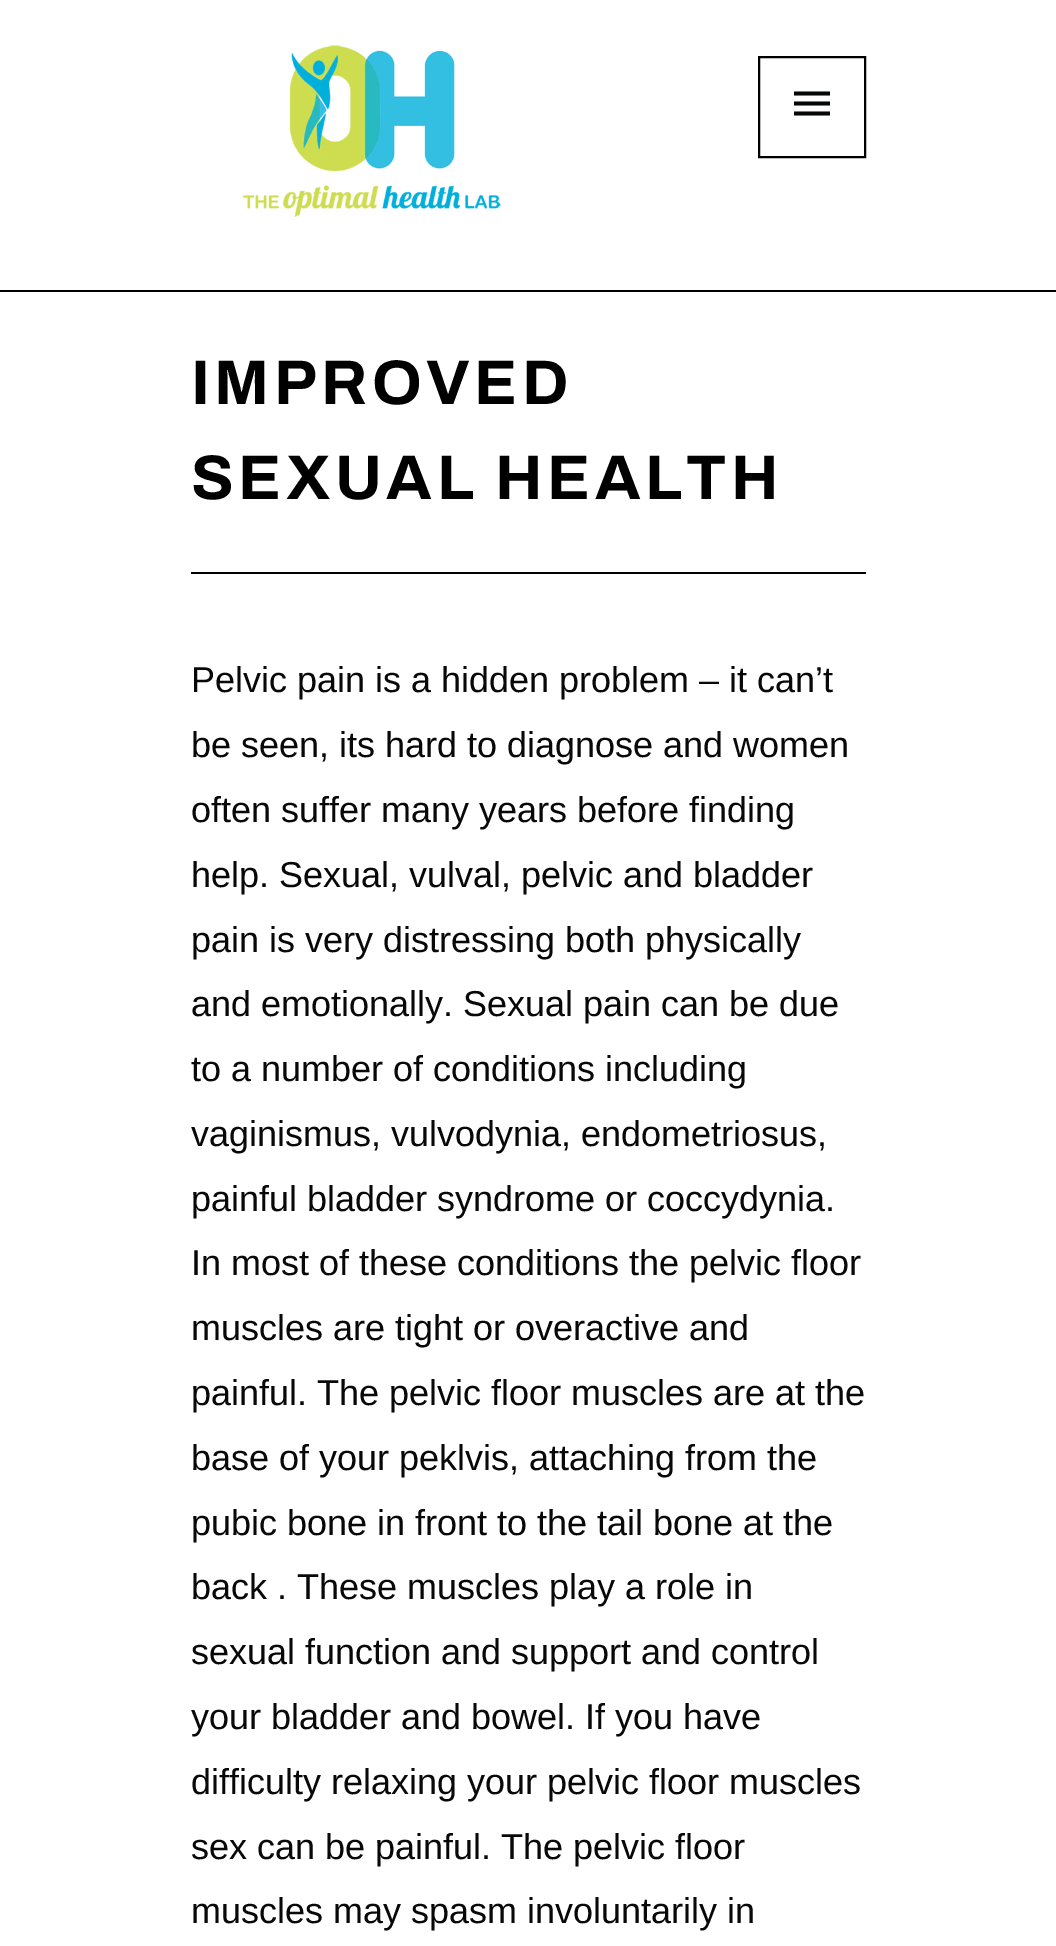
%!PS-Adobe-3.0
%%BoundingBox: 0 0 1056 1946
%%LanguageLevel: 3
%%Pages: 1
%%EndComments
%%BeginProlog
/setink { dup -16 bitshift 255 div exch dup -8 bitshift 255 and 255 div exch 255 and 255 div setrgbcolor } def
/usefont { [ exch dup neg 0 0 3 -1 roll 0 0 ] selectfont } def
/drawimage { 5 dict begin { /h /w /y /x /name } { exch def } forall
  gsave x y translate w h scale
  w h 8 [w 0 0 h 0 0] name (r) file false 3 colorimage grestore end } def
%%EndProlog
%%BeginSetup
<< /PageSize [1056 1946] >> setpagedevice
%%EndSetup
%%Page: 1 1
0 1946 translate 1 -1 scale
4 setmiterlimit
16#FFFFFF setink
0 0 1056 1946 rectfill
16#000000 setink
0 290 1056 2 rectfill
(img1.raw) 242 45 259 172 drawimage
2 setlinewidth
759 57 106 100 rectstroke
16#040707 setink
794 115.5 moveto 830 115.5 lineto 830 111.5 lineto 794 111.5 lineto closepath 794 105.5 moveto 830 105.5 lineto 830 101.5 lineto 794 101.5 lineto closepath 794 91.5 moveto 794 95.5 lineto 830 95.5 lineto 830 91.5 lineto closepath fill
16#000000 setink
191 572 675 2 rectfill
/Archivo-Bold 63 usefont
191 404 moveto 4.5 0 (IMPROVED) ashow
191 499 moveto 4.5 0 (SEXUAL HEALTH) ashow
/LiberationSans-Regular 36 usefont
16#080809 setink
[
    [(Pelvic pain is a hidden problem – it can’t) 191 692]
    [(be seen, its hard to diagnose and women) 191 757]
    [(often suffer many years before finding) 191 822]
    [(help. Sexual, vulval, pelvic and bladder) 191 887]
    [(pain is very distressing both physically) 191 952]
    [(and emotionally. Sexual pain can be due) 191 1016]
    [(to a number of conditions including) 191 1081]
    [(vaginismus, vulvodynia, endometriosus,) 191 1146]
    [(painful bladder syndrome or coccydynia.) 191 1211]
    [(In most of these conditions the pelvic floor) 191 1275]
    [(muscles are tight or overactive and) 191 1340]
    [(painful. The pelvic floor muscles are at the) 191 1405]
    [(base of your peklvis, attaching from the) 191 1470]
    [(pubic bone in front to the tail bone at the) 191 1535]
    [(back . These muscles play a role in) 191 1599]
    [(sexual function and support and control) 191 1664]
    [(your bladder and bowel. If you have) 191 1729]
    [(difficulty relaxing your pelvic floor muscles) 191 1794]
    [(sex can be painful. The pelvic floor) 191 1859]
    [(muscles may spasm involuntarily in) 191 1923]
] { aload pop moveto show } forall
showpage
%%EOF
